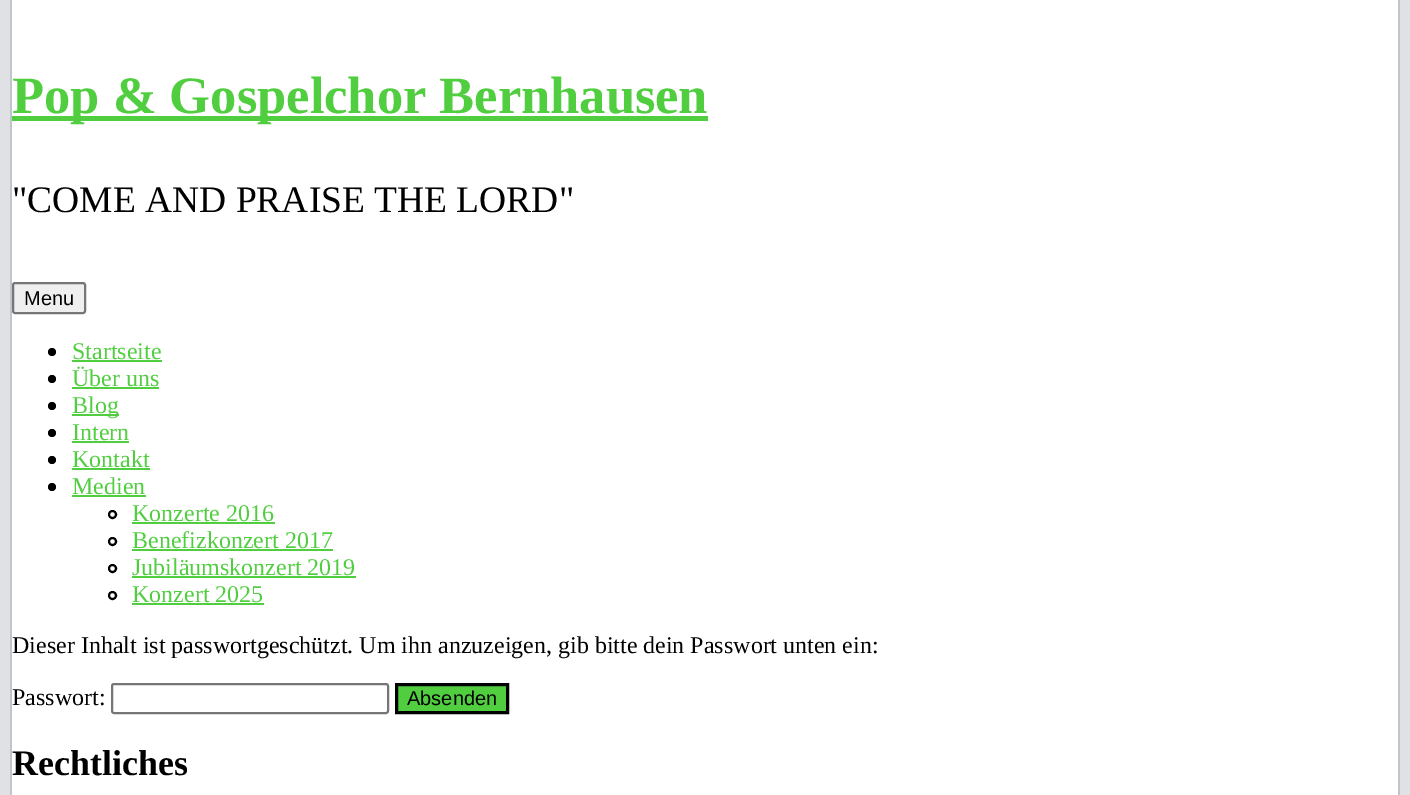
%!PS-Adobe-3.0
%%BoundingBox: 0 0 1410 795
%%LanguageLevel: 3
%%Pages: 1
%%EndComments
%%BeginProlog
/setink { dup -16 bitshift 255 div exch dup -8 bitshift 255 and 255 div exch 255 and 255 div setrgbcolor } def
/usefont { [ exch dup neg 0 0 3 -1 roll 0 0 ] selectfont } def
/setalpha { dup .setfillconstantalpha .setstrokeconstantalpha } def
/disc { newpath 0 360 arc closepath } def
/rrect { 5 dict begin { /r /h /w /y /x } { exch def } forall
  x r add y moveto x w add y 2 copy h add r arct x w add y h add x 1 index r arct
  x y h add x y r arct x y 2 copy exch w add exch r arct closepath end } def
/softshadow { 12 dict begin { /a /b /q /h /w /y /x } { exch def } forall gsave /was 0 def
  9 -2 -9 { dup b mul 4 div /e exch def 1 sub .425 mul 2.718 exch exp 1 add a .99 .min exch div /now exch def
    1 1 now sub 1 was sub div sub setalpha /was now def
    w h .min e 2 mul add 0 gt { x e sub y e sub w e 2 mul add h e 2 mul add
      q e add b .6 mul add w h .min 2 div e add .min 0 .max rrect fill } if } for grestore end } def
%%EndProlog
%%BeginSetup
<< /PageSize [1410 795] /PageUsesTransparency true >> setpagedevice
%%EndSetup
%%Page: 1 1
0 .pushpdf14devicefilter
0 795 translate 1 -1 scale
4 setmiterlimit
16#FFFFFF setink
0 0 1410 795 rectfill
gsave
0 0 moveto 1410 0 lineto 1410 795 lineto 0 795 lineto closepath 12 -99 moveto 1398 -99 lineto 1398 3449 lineto 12 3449 lineto closepath eoclip newpath
16#26394D setink
27 -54 1356 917 0 22.5 1 softshadow
grestore
16#51CE40 setink
12 116 696 5 rectfill
/LiberationSerif-Bold 52.5 usefont
12 113 moveto (Pop & Gospelchor Bernhausen) show
/LiberationSerif-Regular 37.5 usefont
16#000000 setink
12 212 moveto ("COME AND PRAISE THE LORD") show
16#EFEFEF setink
13 283 72 30 2 rrect gsave fill grestore
16#767676 setink
2 setlinewidth
stroke
/LiberationSans-Regular 20 usefont
16#000000 setink
24 305 moveto (Menu) show
52 352 4 disc fill
/LiberationSerif-Regular 24 usefont
16#51CE40 setink
72 359 moveto (Startseite) show
72 360 90 2 rectfill
16#000000 setink
52 379 4 disc fill
16#51CE40 setink
72 386 moveto (Über uns) show
72 387 87 2 rectfill
16#000000 setink
52 406 4 disc fill
16#51CE40 setink
72 414 47 2 rectfill
72 413 moveto (Blog) show
16#000000 setink
52 433 4 disc fill
16#51CE40 setink
72 440 moveto (Intern) show
72 441 57 2 rectfill
16#000000 setink
52 460 4 disc fill
16#51CE40 setink
72 467 moveto (Kontakt) show
72 468 78 2 rectfill
16#000000 setink
52 487 4 disc fill
16#51CE40 setink
72 494 moveto (Medien) show
72 495 74 2 rectfill
16#000000 setink
112.5 514.5 3.5 disc stroke
16#51CE40 setink
132 521 moveto (Konzerte 2016) show
132 522 143 2 rectfill
16#000000 setink
112.5 541.5 3.5 disc stroke
16#51CE40 setink
132 548 moveto (Benefizkonzert 2017) show
132 549 201 2 rectfill
16#000000 setink
112.5 568.5 3.5 disc stroke
16#51CE40 setink
132 575 moveto (Jubiläumskonzert 2019) show
132 576 224 2 rectfill
16#000000 setink
112.5 595.5 3.5 disc stroke
16#51CE40 setink
132 602 moveto (Konzert 2025) show
132 603 132 2 rectfill
16#000000 setink
12 653 moveto (Dieser Inhalt ist passwortgeschützt. Um ihn anzuzeigen, gib bitte dein Passwort unten ein:) show
12 705 moveto (Passwort:) show
16#767676 setink
112 684 276 29 2 rrect stroke
16#51CE40 setink
396.5 684.5 moveto 507.5 684.5 lineto 507.5 712.5 lineto 396.5 712.5 lineto closepath gsave fill grestore
16#000000 setink
3 setlinewidth
stroke
/LiberationSans-Regular 20 usefont
407 705 moveto (Absenden) show
/LiberationSerif-Bold 36 usefont
12 775 moveto (Rechtliches) show
.poppdf14devicefilter showpage
%%EOF
